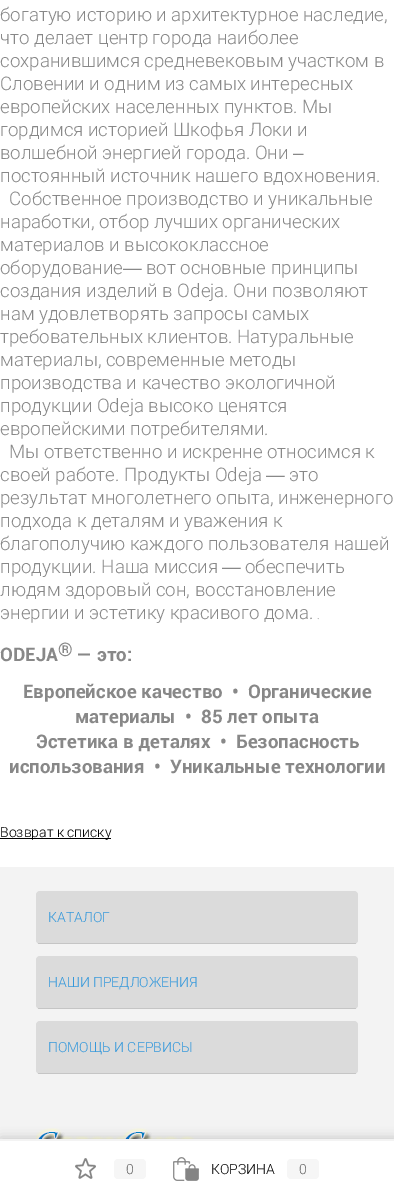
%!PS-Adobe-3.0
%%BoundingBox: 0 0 394 1196
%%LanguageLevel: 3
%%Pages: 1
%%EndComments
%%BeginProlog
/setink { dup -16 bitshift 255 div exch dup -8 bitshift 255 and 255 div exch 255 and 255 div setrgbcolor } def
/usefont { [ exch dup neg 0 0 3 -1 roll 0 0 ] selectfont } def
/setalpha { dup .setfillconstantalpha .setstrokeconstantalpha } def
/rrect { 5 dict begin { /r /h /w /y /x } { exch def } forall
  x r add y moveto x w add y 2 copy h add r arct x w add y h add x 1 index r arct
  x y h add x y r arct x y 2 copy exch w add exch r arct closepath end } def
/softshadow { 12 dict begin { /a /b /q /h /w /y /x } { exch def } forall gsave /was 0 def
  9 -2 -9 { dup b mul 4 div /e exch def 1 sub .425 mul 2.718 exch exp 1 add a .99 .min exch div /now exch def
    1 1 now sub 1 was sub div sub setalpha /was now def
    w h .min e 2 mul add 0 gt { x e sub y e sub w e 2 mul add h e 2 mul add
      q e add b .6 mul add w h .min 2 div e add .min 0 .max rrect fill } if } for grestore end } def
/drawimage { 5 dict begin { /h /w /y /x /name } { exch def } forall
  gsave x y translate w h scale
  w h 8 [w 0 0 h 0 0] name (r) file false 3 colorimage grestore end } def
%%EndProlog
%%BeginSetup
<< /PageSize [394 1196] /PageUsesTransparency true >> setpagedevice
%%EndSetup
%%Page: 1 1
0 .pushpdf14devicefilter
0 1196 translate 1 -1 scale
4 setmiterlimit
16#FFFFFF setink
0 0 394 1196 rectfill
/Roboto-Light 18.7 usefont
16#888888 setink
[
    [(богатую историю и архитектурное наследие,) 0 21]
    [(что делает центр города наиболее) 0 44]
    [(сохранившимся средневековым участком в) 0 67]
    [(Словении и одним из самых интересных) 0 90]
    [(европейских населенных пунктов. Мы) 0 113]
    [(гордимся историей Шкофья Локи и) 0 136]
    [(волшебной энергией города. Они) 0 159]
] { aload pop moveto show } forall
/LiberationSans-Regular 18.7 usefont
293 159 moveto (–) show
/Roboto-Light 18.7 usefont
[
    [(постоянный источник нашего вдохновения.) 0 182]
    [(Собственное производство и уникальные) 9 205]
    [(наработки, отбор лучших органических) 0 228]
    [(материалов и высококлассное) 0 251]
    [(оборудование) 0 274]
] { aload pop moveto show } forall
/LiberationSans-Regular 18.7 usefont
123 274 moveto (—) show
/Roboto-Light 18.7 usefont
[
    [(вот основные принципы) 146 274]
    [(создания изделий в Odeja. Они позволяют) 0 297]
    [(нам удовлетворять запросы самых) 0 320]
    [(требовательных клиентов. Натуральные) 0 343]
    [(материалы, современные методы) 0 366]
    [(производства и качество экологичной) 0 389]
    [(продукции Odeja высоко ценятся) 0 412]
    [(европейскими потребителями.) 0 435]
    [(Мы ответственно и искренне относимся к) 9 458]
    [(своей работе. Продукты Odeja) 0 481]
] { aload pop moveto show } forall
/LiberationSans-Regular 18.7 usefont
266 481 moveto (—) show
/Roboto-Light 18.7 usefont
[
    [(это) 289 481]
    [(результат многолетнего опыта, инженерного) 0 504]
    [(подхода к деталям и уважения к) 0 527]
    [(благополучию каждого пользователя нашей) 0 550]
    [(продукции. Наша миссия) 0 573]
] { aload pop moveto show } forall
/LiberationSans-Regular 18.7 usefont
222 573 moveto (—) show
/Roboto-Light 18.7 usefont
[
    [(обеспечить) 245 573]
    [(людям здоровый сон, восстановление) 0 596]
    [(энергии и эстетику красивого дома.) 0 619]
] { aload pop moveto show } forall
/Roboto-Light 12 usefont
317 619 moveto (.) show
/Roboto-Bold 18.7 usefont
[
    [(ODEJA) 0 661]
    [(®) 58 656]
    [(— это:) 77 661]
    [(Европейское качество  •  Органические) 23 698]
    [(материалы  •  85 лет опыта) 75 723]
    [(Эстетика в деталях  •  Безопасность) 36 748]
    [(использования  •  Уникальные технологии) 9 773]
] { aload pop moveto show } forall
16#000000 setink
0 838 111 1 rectfill
/Roboto-Light 14 usefont
0 837 moveto (Возврат к списку) show
16#F3F3F3 setink
0 867 394 272 rectfill
16#DBDBDB setink
36 891 322 53 4 rrect fill
0.1 setalpha
16#000000 setink
38 943 318 1 rectfill
1 setalpha
16#3498DB setink
48 922 moveto (КАТАЛОГ) show
16#DBDBDB setink
36 956 322 53 4 rrect fill
0.1 setalpha
16#000000 setink
38 1008 318 1 rectfill
1 setalpha
16#3498DB setink
48 987 moveto (НАШИ ПРЕДЛОЖЕНИЯ) show
16#DBDBDB setink
36 1021 322 53 4 rrect fill
0.1 setalpha
16#000000 setink
38 1073 318 1 rectfill
1 setalpha
16#3498DB setink
48 1052 moveto (ПОМОЩЬ И СЕРВИСЫ) show
(img1.raw) 36 1128 159 11 drawimage
16#000000 setink
1 1140 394 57 0 6 0.25 softshadow
16#FFFFFF setink
0 1141 394 55 rectfill
16#F3F3F3 setink
0 1139 394 2 rectfill
(img2.raw) 75 1158 21 21 drawimage
16#F6F6F6 setink
114 1159 32 20 4 rrect fill
16#666666 setink
126 1174 moveto (0) show
(img3.raw) 173 1157 26 24 drawimage
16#000000 setink
211 1174 moveto (КОРЗИНА) show
16#F6F6F6 setink
287 1159 32 20 4 rrect fill
16#666666 setink
299 1174 moveto (0) show
.poppdf14devicefilter showpage
%%EOF
